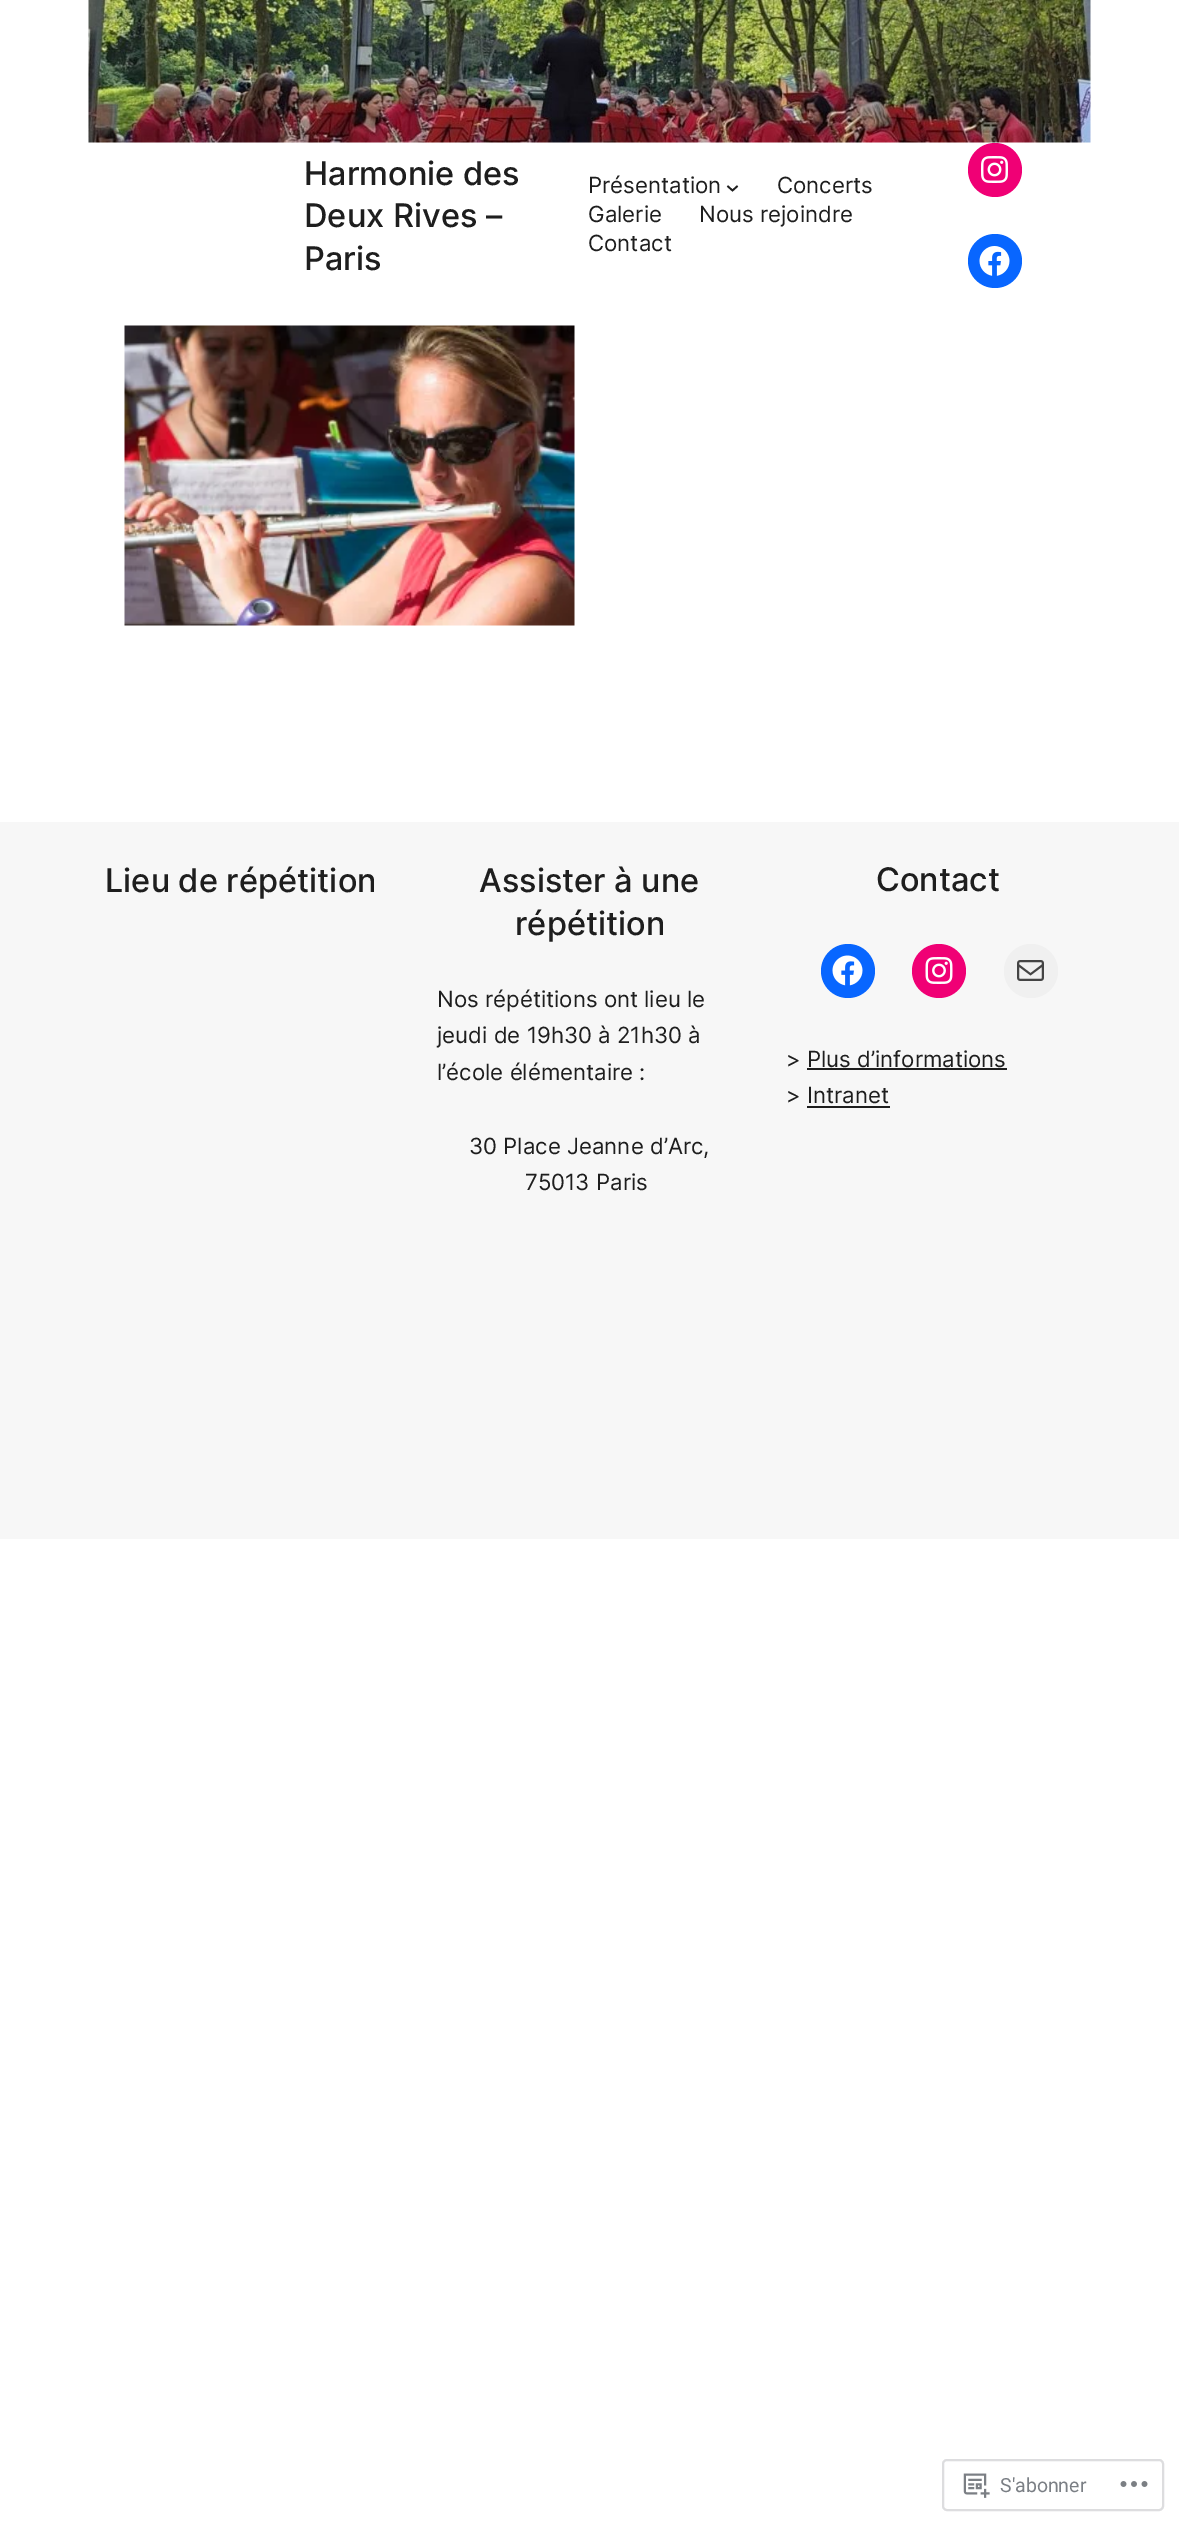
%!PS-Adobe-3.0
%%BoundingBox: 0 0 1179 2525
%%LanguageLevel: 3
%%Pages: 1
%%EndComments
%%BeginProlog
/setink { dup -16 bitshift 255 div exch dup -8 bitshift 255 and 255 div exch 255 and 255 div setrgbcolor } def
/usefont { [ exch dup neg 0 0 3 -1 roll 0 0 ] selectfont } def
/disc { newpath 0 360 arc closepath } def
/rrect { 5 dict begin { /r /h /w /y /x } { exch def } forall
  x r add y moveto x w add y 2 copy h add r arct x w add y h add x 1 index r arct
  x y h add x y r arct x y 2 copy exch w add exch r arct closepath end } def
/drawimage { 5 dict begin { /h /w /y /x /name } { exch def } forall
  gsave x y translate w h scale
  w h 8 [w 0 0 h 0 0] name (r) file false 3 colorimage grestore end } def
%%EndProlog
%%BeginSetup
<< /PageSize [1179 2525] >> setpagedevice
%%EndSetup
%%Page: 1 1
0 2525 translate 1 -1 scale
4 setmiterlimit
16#FFFFFF setink
0 0 1179 2525 rectfill
(img1.raw) 88 0 1003 143 drawimage
/Inter-Medium 32.5 usefont
16#1E1E1E setink
[
    [(Harmonie des) 304 185]
    [(Deux Rives –) 304 227]
    [(Paris) 304 270]
] { aload pop moveto show } forall
/Inter-Regular 22.25 usefont
588 193 moveto (Présentation) show
1.7 setlinewidth
727.5 186 moveto 732.5 190.5 lineto 737.5 186 lineto stroke
[
    [(Concerts) 777 193]
    [(Galerie) 588 222]
    [(Nous rejoindre) 699 222]
    [(Contact) 588 251]
] { aload pop moveto show } forall
16#F00075 setink
995 170 27 disc fill
(img2.raw) 981 156 27 27 drawimage
16#0866FF setink
995 261 27 disc fill
(img3.raw) 979 246 31 30 drawimage
(img4.raw) 124 325 451 301 drawimage
16#F7F7F7 setink
0 822 1179 717 rectfill
/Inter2-Medium 32.5 usefont
16#1E1E1E setink
[
    [(Lieu de répétition) 105 892]
    [(Assister à une) 479 892]
    [(répétition) 515 935]
] { aload pop moveto show } forall
/Inter-Regular 22.25 usefont
[
    [(Nos répétitions ont lieu le) 437 1007]
    [(jeudi de 19h30 à 21h30 à) 437 1043]
    [(l’école élémentaire :) 437 1080]
    [(30 Place Jeanne d’Arc,) 469 1154]
    [(75013 Paris) 525 1190]
] { aload pop moveto show } forall
/Inter2-Medium 32.5 usefont
876 891 moveto (Contact) show
16#0866FF setink
848 971 27 disc fill
(img5.raw) 832 955 31 31 drawimage
16#F00075 setink
939 971 27 disc fill
(img6.raw) 925 957 28 27 drawimage
16#F0F0F0 setink
1031 971 27 disc fill
(img7.raw) 1017 960 27 21 drawimage
/Inter-Regular 22.25 usefont
16#1E1E1E setink
786 1067 moveto (> Plus d’informations) show
807 1068 200 2 rectfill
786 1103 moveto (> Intranet) show
807 1106 83 2 rectfill
16#DDDDDF setink
2 setlinewidth
943 2460 220 50 4 rrect stroke
(img8.raw) 963 2473 27 25 drawimage
/Roboto-Regular 19.5 usefont
16#7B7F85 setink
1000 2492 moveto (S'abonner) show
(img9.raw) 1120 2481 28 6 drawimage
showpage
%%EOF
